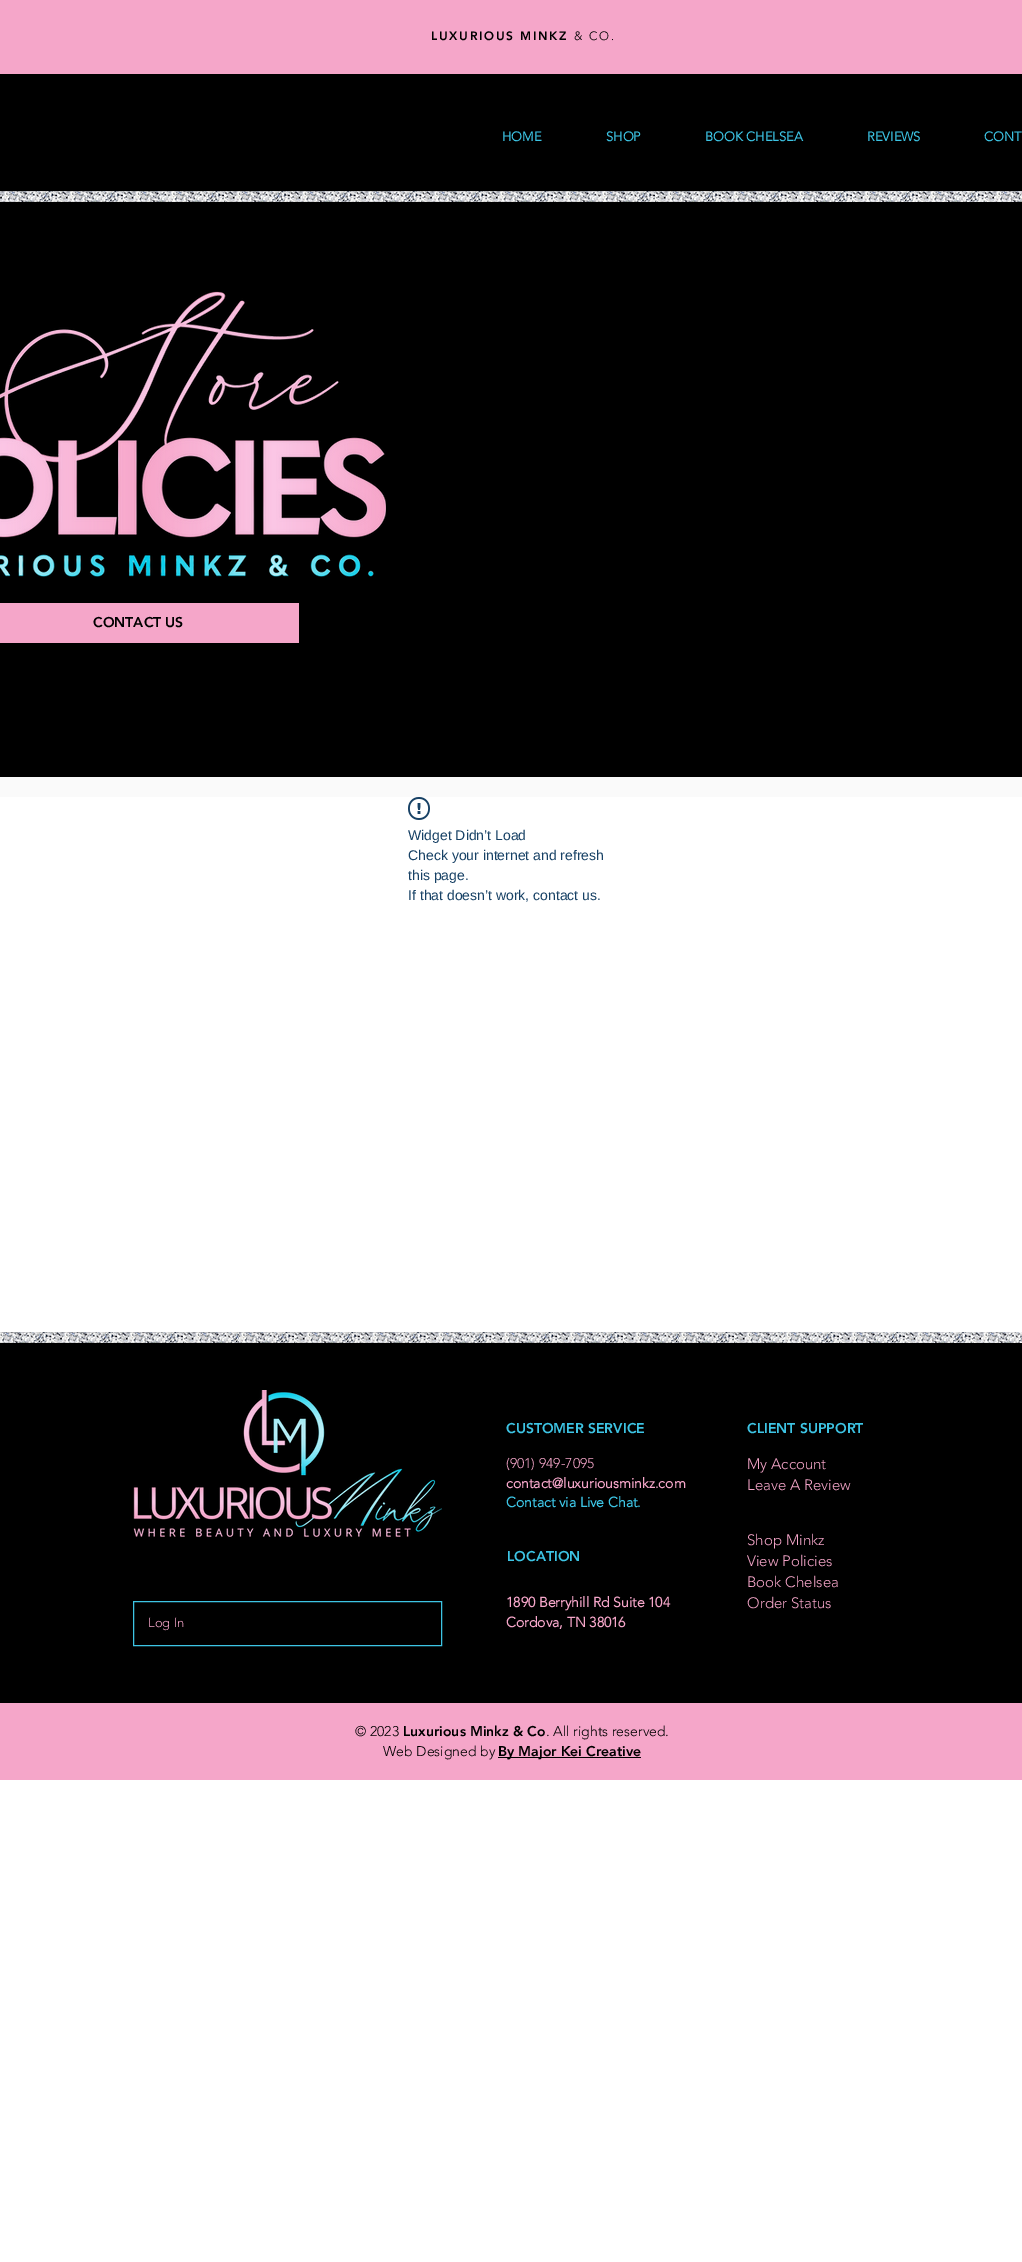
%!PS-Adobe-3.0
%%BoundingBox: 0 0 1022 2262
%%LanguageLevel: 3
%%Pages: 1
%%EndComments
%%BeginProlog
/setink { dup -16 bitshift 255 div exch dup -8 bitshift 255 and 255 div exch 255 and 255 div setrgbcolor } def
/usefont { [ exch dup neg 0 0 3 -1 roll 0 0 ] selectfont } def
/drawimage { 5 dict begin { /h /w /y /x /name } { exch def } forall
  gsave x y translate w h scale
  w h 8 [w 0 0 h 0 0] name (r) file false 3 colorimage grestore end } def
%%EndProlog
%%BeginSetup
<< /PageSize [1022 2262] >> setpagedevice
%%EndSetup
%%Page: 1 1
0 2262 translate 1 -1 scale
4 setmiterlimit
16#FFFFFF setink
0 0 1022 2262 rectfill
16#F5A6C9 setink
0 0 1022 74 rectfill
/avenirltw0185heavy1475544-Black 12 usefont
16#000000 setink
431 40 moveto 1.75 0 (LUXURIOUS MINKZ) ashow
/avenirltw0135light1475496-Light 12 usefont
574 40 moveto 1.75 0 (& CO.) ashow
0 74 1022 703 rectfill
/avenirltw0135light1475496-Bold 13 usefont
16#3DC4E4 setink
[
    [(HOME) 502 141]
    [(SHOP) 606 141]
    [(BOOK CHELSEA) 705 141]
    [(REVIEWS) 867 141]
    [(CONT) 984 141]
] { aload pop moveto show } forall
(img1.raw) 0 191 179 11 drawimage
(img2.raw) 169 191 440 11 drawimage
(img3.raw) 600 191 422 11 drawimage
(img4.raw) 797 191 225 11 drawimage
(img5.raw) 0 291 386 286 drawimage
16#F5A6C9 setink
0 603 299 40 rectfill
/avenirltw0185heavy1475544-Black 14 usefont
16#000000 setink
93 627 moveto (CONTACT US) show
16#FAFAFA setink
0 777 1022 20 rectfill
(img6.raw) 408 797 22 23 drawimage
/LiberationSans-Regular 14 usefont
16#174165 setink
[
    [(Widget Didn’t Load) 408 840]
    [(Check your internet and refresh) 408 860]
    [(this page.) 408 880]
    [(If that doesn’t work, contact us.) 408 900]
] { aload pop moveto show } forall
16#000000 setink
0 1332 1022 371 rectfill
(img7.raw) 0 1332 239 11 drawimage
(img8.raw) 239 1332 440 11 drawimage
(img9.raw) 679 1332 343 11 drawimage
(img10.raw) 784 1332 238 11 drawimage
(img11.raw) 133 1390 309 147 drawimage
/avenirltw0185heavy1475544-Black 14 usefont
16#3DC4E4 setink
506 1433 moveto (CUSTOMER SERVICE) show
747 1433 moveto (CLIENT SUPPORT) show
/avenirltw0135light1475496-Light 14 usefont
16#F5A6C9 setink
506 1468 moveto (\(901\) 949-7095) show
/avenirltw0135light1475496-Bold 14 usefont
506 1488 moveto (contact@luxuriousminkz.com) show
16#3DC4E4 setink
506 1507 moveto (Contact via Live Chat.) show
/avenirltw0135light1475496-Light 15 usefont
16#F5A6C9 setink
747 1469 moveto (My Account) show
747 1490 moveto (Leave A Review) show
/avenirltw0185heavy1475544-Black 14 usefont
16#3DC4E4 setink
507 1561 moveto (LOCATION) show
/avenirltw0135light1475496-Light 15 usefont
16#F5A6C9 setink
[
    [(Shop Minkz) 747 1545]
    [(View Policies) 747 1566]
    [(Book Chelsea) 747 1587]
    [(Order Status) 747 1608]
] { aload pop moveto show } forall
16#3DC4E4 setink
133.5 1601.5 308 44 rectstroke
/avenirltw0135light1475496-Light 13 usefont
16#F5A6C9 setink
148 1627 moveto (Log In) show
/avenirltw0135light1475496-Bold 14 usefont
506 1607 moveto (1890 Berryhill Rd Suite 104) show
506 1627 moveto (Cordova, TN 38016) show
0 1703 1022 77 rectfill
/avenirltw0135light1475496-Light 14 usefont
16#000000 setink
355 1736 moveto (© 2023) show
/avenirltw0185heavy1475544-Black 14 usefont
403 1736 moveto (Luxurious Minkz & Co) show
/avenirltw0135light1475496-Light 14 usefont
546 1736 moveto (. All rights reserved.) show
383 1756 moveto (Web Designed by) show
498 1757 143 1 rectfill
/avenirltw0185heavy1475544-Black 14 usefont
498 1756 moveto (By Major Kei Creative) show
showpage
%%EOF
